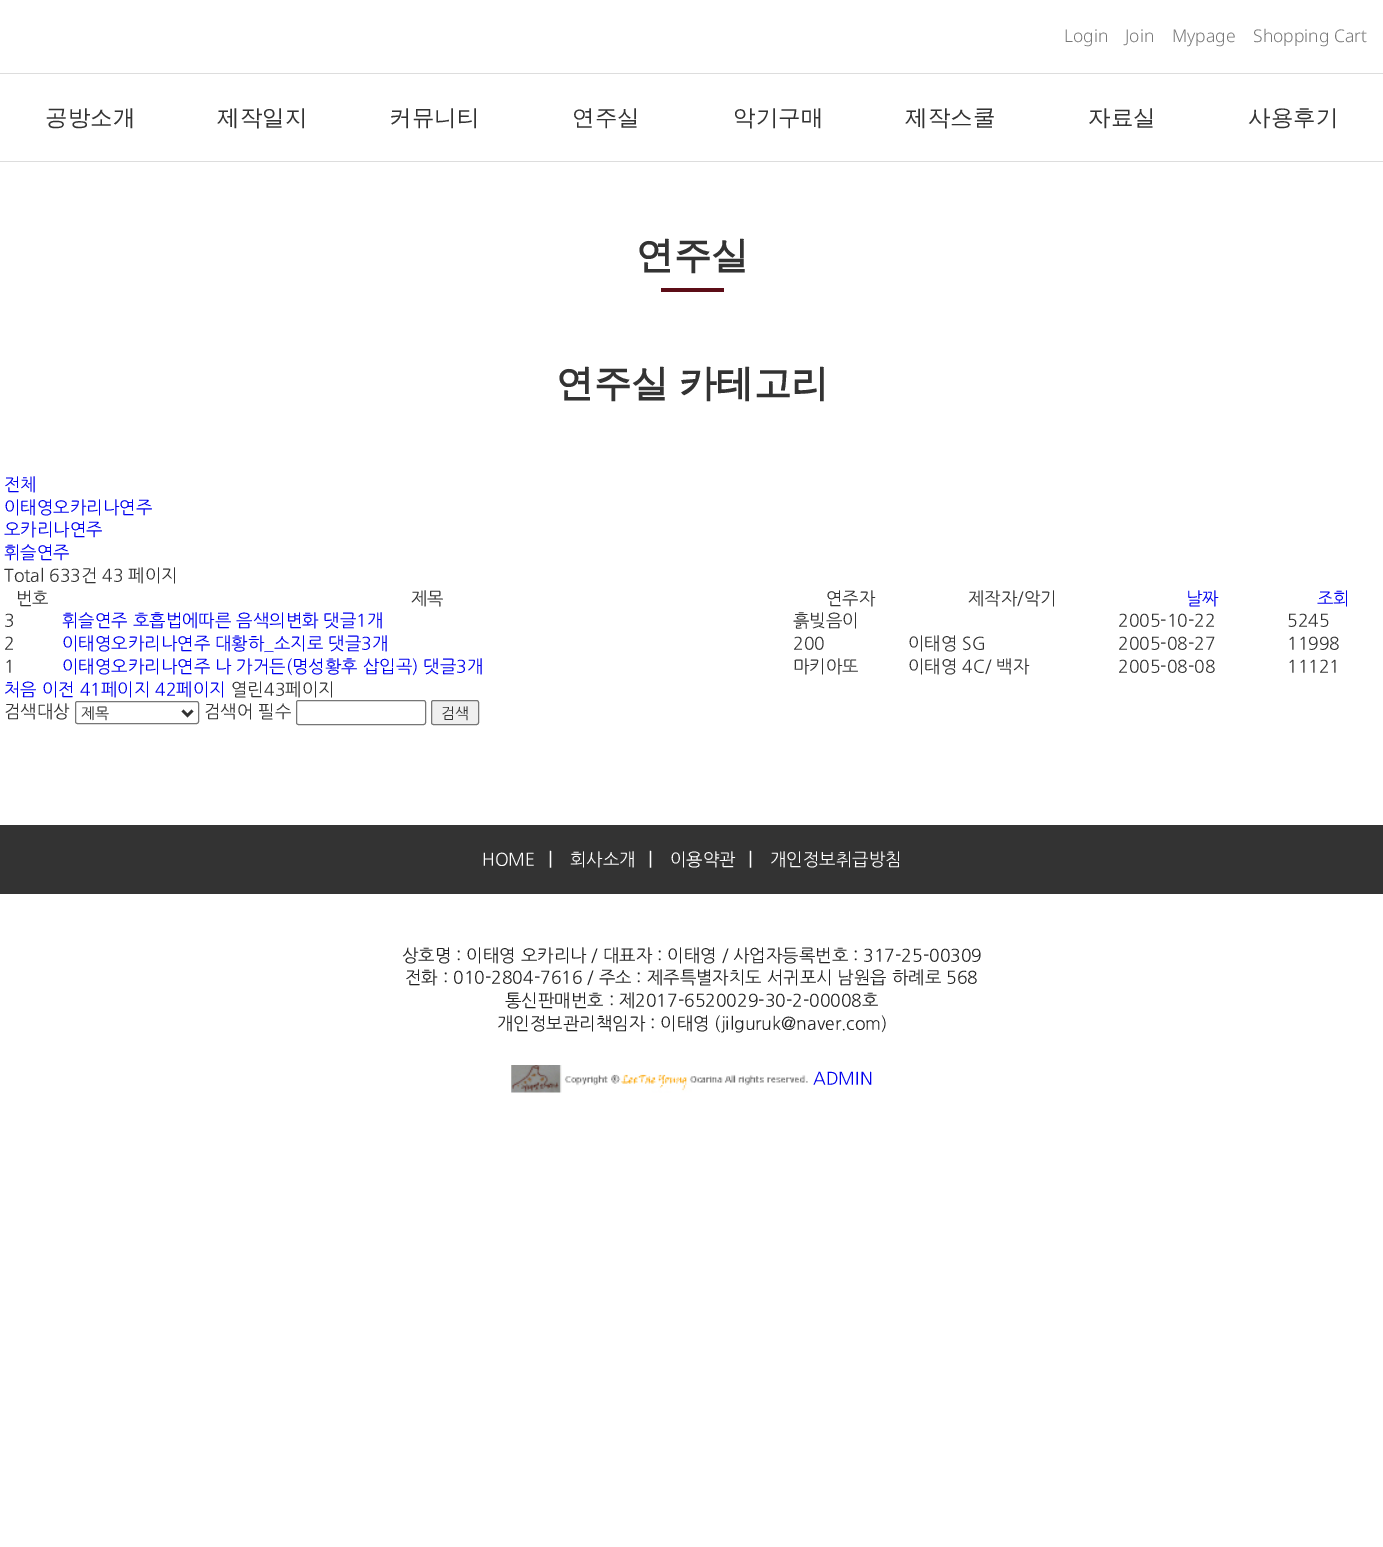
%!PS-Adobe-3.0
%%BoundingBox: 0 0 1383 1547
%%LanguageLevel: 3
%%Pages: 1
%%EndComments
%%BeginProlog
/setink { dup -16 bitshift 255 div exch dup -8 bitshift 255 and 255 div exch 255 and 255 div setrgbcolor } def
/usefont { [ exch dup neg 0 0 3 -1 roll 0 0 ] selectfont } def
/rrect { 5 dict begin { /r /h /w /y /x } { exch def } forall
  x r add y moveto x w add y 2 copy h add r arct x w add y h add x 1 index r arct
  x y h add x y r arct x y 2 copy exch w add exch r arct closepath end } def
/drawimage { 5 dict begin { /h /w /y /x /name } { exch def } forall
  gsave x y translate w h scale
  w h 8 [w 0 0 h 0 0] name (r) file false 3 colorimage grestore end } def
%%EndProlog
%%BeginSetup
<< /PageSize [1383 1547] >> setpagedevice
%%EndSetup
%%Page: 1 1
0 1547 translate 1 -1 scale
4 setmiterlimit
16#FFFFFF setink
0 0 1383 1547 rectfill
/NotoSans-Light 17.5 usefont
16#787878 setink
[
    [(Login) 1064 42]
    [(Join) 1125 42]
    [(Mypage) 1172 42]
    [(Shopping Cart) 1253 42]
] { aload pop moveto show } forall
16#DDDDDD setink
0 73 1383 1 rectfill
0 161 1383 1 rectfill
/WenQuanYiZenHei-Medium 22.5 usefont
16#333333 setink
[
    [(공방소개) 45 125]
    [(제작일지) 217 125]
    [(커뮤니티) 389 125]
    [(연주실) 572 125]
    [(악기구매) 733 125]
    [(제작스쿨) 905 125]
    [(자료실) 1088 125]
    [(사용후기) 1248 125]
] { aload pop moveto show } forall
/WenQuanYiZenHei-Bold 37.5 usefont
636 268 moveto (연주실) show
16#5C0D17 setink
661 288 63 4 rectfill
16#333333 setink
556 396 moveto -1 0 32 (연주실 카테고리) widthshow
/NanumGothic-Regular 17.5 usefont
16#0000EE setink
[
    [(전체) 4 490]
    [(이태영오카리나연주) 4 513]
    [(오카리나연주) 4 535]
    [(휘슬연주) 4 558]
] { aload pop moveto show } forall
16#333333 setink
[
    [(Total 633건 43 페이지) 4 581]
    [(번호) 16 604]
    [(제목) 411 604]
    [(연주자) 826 604]
    [(제작자/악기) 968 604]
] { aload pop moveto show } forall
16#0000EE setink
1186 604 moveto (날짜) show
1317 604 moveto (조회) show
16#333333 setink
4 626 moveto (3) show
16#0000EE setink
62 626 moveto (휘슬연주 호흡법에따른 음색의변화 댓글1개) show
16#333333 setink
[
    [(흙빚음이) 793 626]
    [(2005-10-22) 1118 626]
    [(5245) 1287 626]
    [(2) 4 649]
] { aload pop moveto show } forall
16#0000EE setink
62 649 moveto (이태영오카리나연주 대황하_소지로 댓글3개) show
16#333333 setink
[
    [(200) 793 649]
    [(이태영 SG) 908 649]
    [(2005-08-27) 1118 649]
    [(11998) 1287 649]
    [(1) 4 672]
] { aload pop moveto show } forall
16#0000EE setink
62 672 moveto (이태영오카리나연주 나 가거든\(명성황후 삽입곡\) 댓글3개) show
16#333333 setink
[
    [(마키아또) 793 672]
    [(이태영 4C/ 백자) 908 672]
    [(2005-08-08) 1118 672]
    [(11121) 1287 672]
] { aload pop moveto show } forall
16#0000EE setink
4 695 moveto (처음 이전 41페이지 42페이지) show
16#333333 setink
231 695 moveto (열린43페이지) show
4 717 moveto (검색대상) show
16#767676 setink
75.5 701.5 123 22 2 rrect stroke
16#333333 setink
2.5 setlinewidth
182.5 710.5 moveto 187.5 715.5 lineto 192.5 710.5 lineto stroke
/NanumGothic-Regular 15 usefont
81 718 moveto (제목) show
/NanumGothic-Regular 17.5 usefont
204 717 moveto (검색어 필수) show
16#767676 setink
1 setlinewidth
296.5 700.5 129 24 2 rrect stroke
16#EFEFEF setink
431.5 700.5 47 24 2 rrect gsave fill grestore
16#767676 setink
stroke
/NanumGothic-Regular 15 usefont
16#333333 setink
441 718 moveto (검색) show
0 825 1383 69 rectfill
/NanumGothic-Regular 17.5 usefont
16#FFFFFF setink
482 865 moveto (HOME) show
/NanumGothic-Regular 19 usefont
548 865 moveto (|) show
/NanumGothic-Regular 17.5 usefont
570 865 moveto (회사소개) show
/NanumGothic-Regular 19 usefont
648 865 moveto (|) show
/NanumGothic-Regular 17.5 usefont
670 865 moveto (이용약관) show
/NanumGothic-Regular 19 usefont
748 865 moveto (|) show
/NanumGothic-Regular 17.5 usefont
770 865 moveto (개인정보취급방침) show
16#222222 setink
[
    [(상호명 : 이태영 오카리나 / 대표자 : 이태영 / 사업자등록번호 : 317-25-00309) 402 961]
    [(전화 : 010-2804-7616 / 주소 : 제주특별자치도 서귀포시 남원읍 하례로 568) 405 983]
    [(통신판매번호 : 제2017-6520029-30-2-00008호) 505 1006]
    [(개인정보관리책임자 : 이태영 \(jilguruk@naver.com\)) 497 1029]
] { aload pop moveto show } forall
(img1.raw) 511 1065 297 28 drawimage
16#0000EE setink
813 1084 moveto (ADMIN) show
showpage
%%EOF
